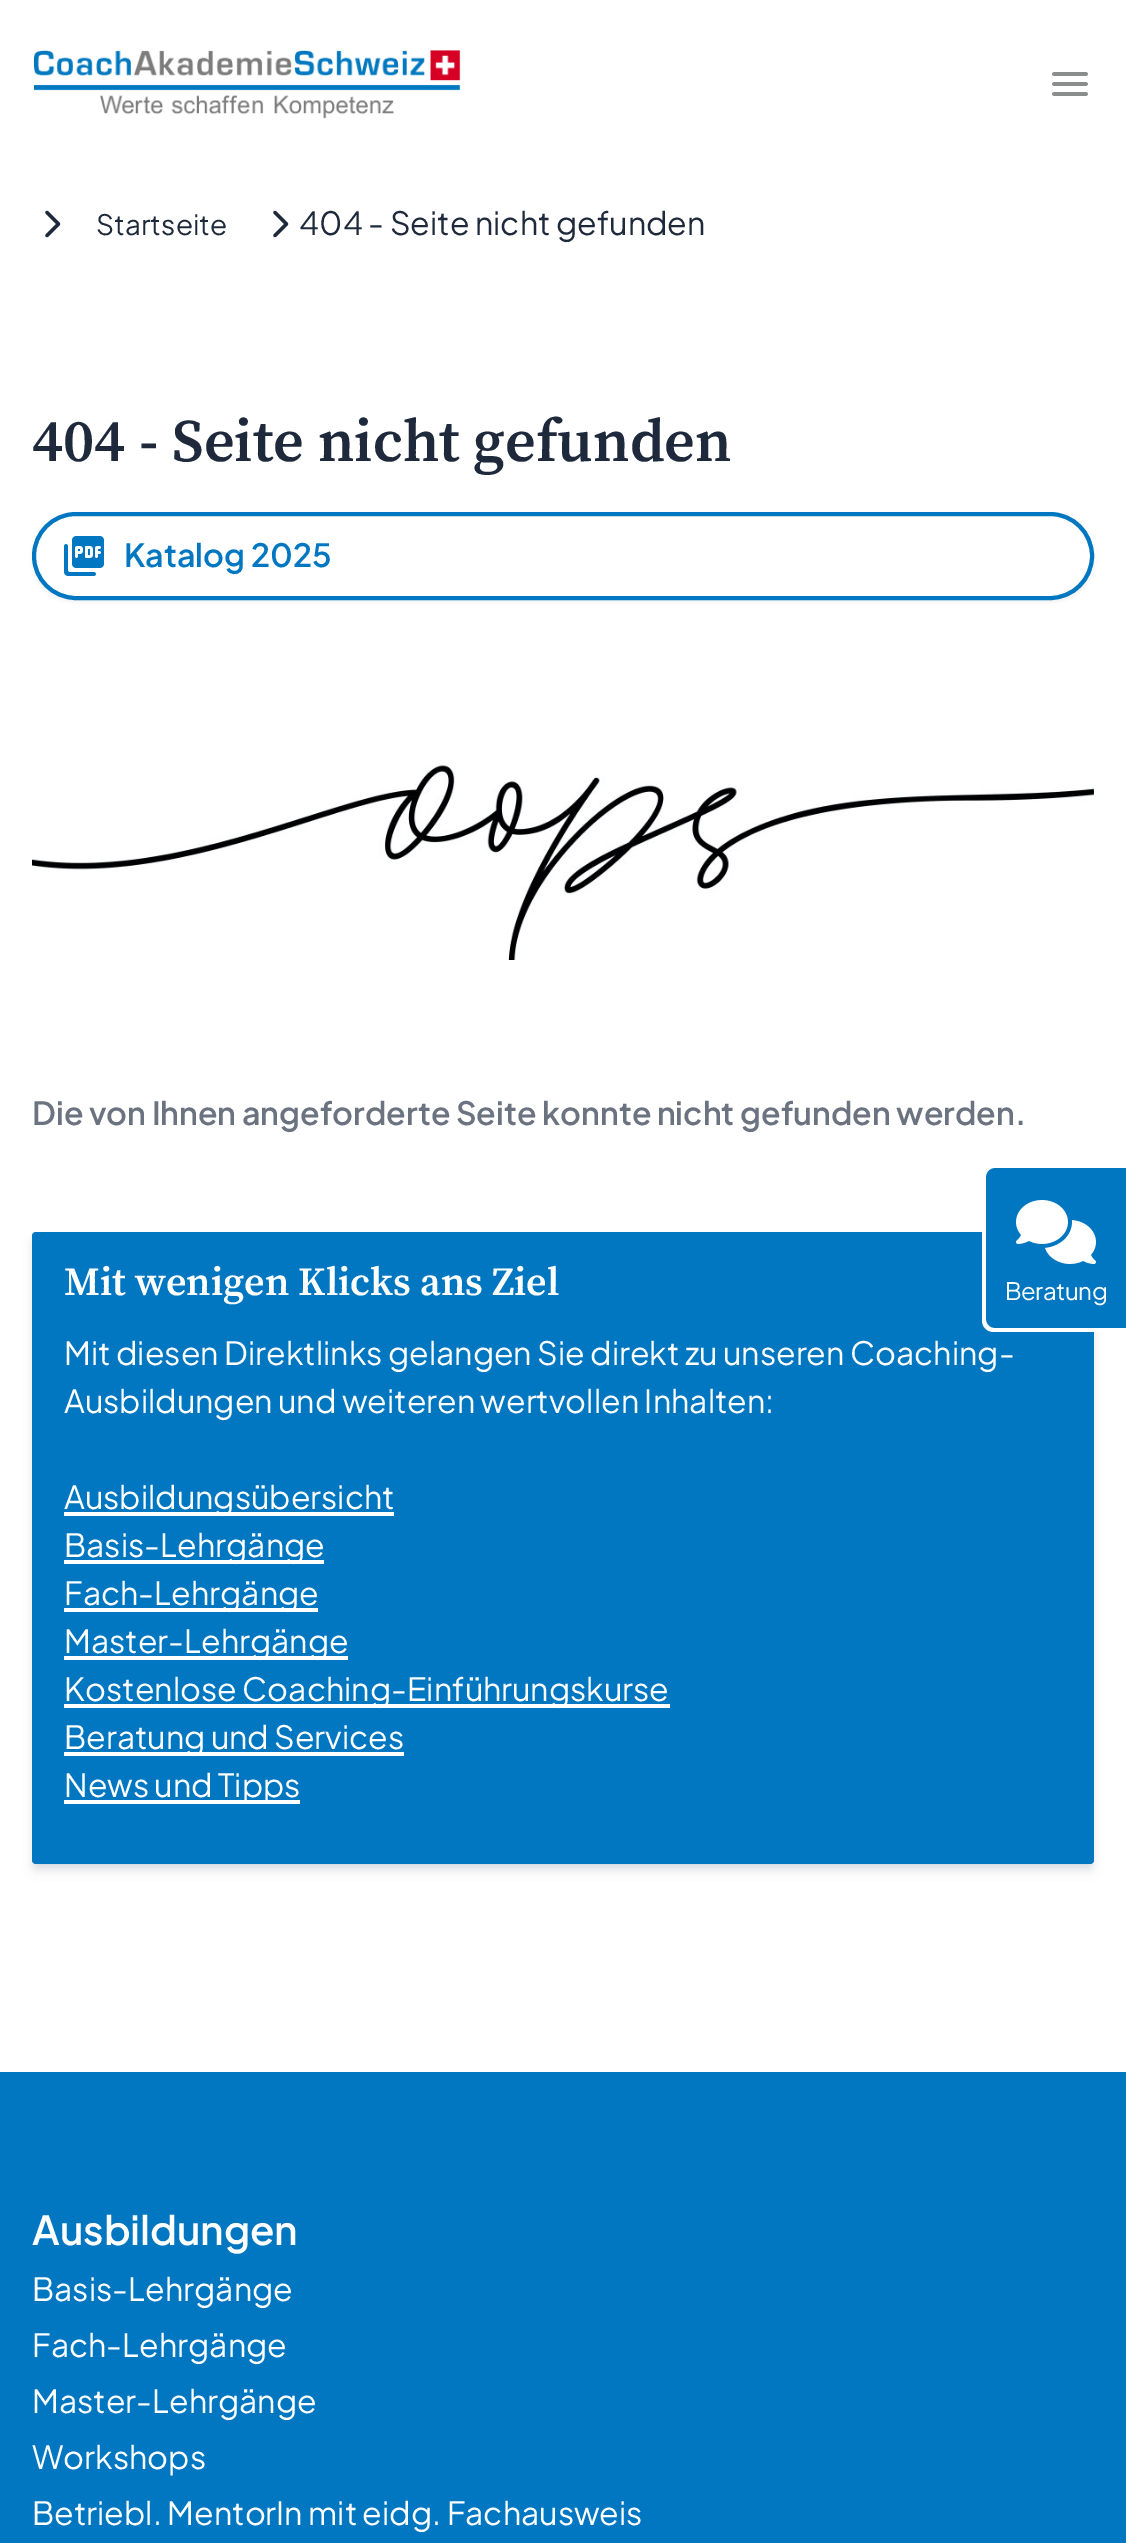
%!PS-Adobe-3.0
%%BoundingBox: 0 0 1126 2543
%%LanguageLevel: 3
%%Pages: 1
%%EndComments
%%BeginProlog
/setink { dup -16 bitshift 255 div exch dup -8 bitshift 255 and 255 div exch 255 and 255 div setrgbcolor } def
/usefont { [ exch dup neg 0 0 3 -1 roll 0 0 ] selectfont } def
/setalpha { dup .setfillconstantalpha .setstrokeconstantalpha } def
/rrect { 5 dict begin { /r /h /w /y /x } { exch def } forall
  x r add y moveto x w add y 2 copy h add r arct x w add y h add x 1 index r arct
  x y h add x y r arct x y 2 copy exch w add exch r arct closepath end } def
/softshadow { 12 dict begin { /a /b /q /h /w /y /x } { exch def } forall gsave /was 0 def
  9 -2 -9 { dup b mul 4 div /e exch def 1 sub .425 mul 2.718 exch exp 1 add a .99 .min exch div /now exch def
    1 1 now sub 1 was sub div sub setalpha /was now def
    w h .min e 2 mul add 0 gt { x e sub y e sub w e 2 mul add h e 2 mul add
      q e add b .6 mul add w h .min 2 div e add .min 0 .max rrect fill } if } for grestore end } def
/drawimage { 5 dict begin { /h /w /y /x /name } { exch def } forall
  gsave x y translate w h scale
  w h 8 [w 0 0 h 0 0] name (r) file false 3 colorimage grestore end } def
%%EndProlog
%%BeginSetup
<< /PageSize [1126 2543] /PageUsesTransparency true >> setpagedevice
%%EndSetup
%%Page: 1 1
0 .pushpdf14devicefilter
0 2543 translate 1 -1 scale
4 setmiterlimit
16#FFFFFF setink
0 0 1126 2543 rectfill
(img1.raw) 33 50 428 69 drawimage
(img2.raw) 1052 72 36 24 drawimage
16#1E293B setink
3.3 setlinewidth
1 setlinecap
1 setlinejoin
47 212.5 moveto 58.5 224 lineto 47 235.5 lineto stroke
/PlusJakartaSans-Regular 28 usefont
96 235 moveto (Startseite) show
275 212.5 moveto 286.5 224 lineto 275 235.5 lineto stroke
/PlusJakartaSans-Regular 32 usefont
299 235 moveto (404 - Seite nicht gefunden) show
/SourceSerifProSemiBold-SemiBold 60 usefont
32 461 moveto (404 - Seite nicht gefunden) show
16#000000 setink
32 514 1062 88 44 2 0.05 softshadow
16#FFFFFF setink
34 514 1058 84 42 rrect gsave fill grestore
16#0077C0 setink
4 setlinewidth
0 setlinecap
0 setlinejoin
stroke
(img3.raw) 64 536 40 40 drawimage
/PlusJakartaSans-SemiBold 32 usefont
124 567 moveto (Katalog 2025) show
(img4.raw) 32 696 1062 264 drawimage
16#6B7280 setink
32 1125 moveto (Die von Ihnen angeforderte Seite konnte nicht gefunden werden.) show
16#94A3B8 setink
36 1240 1054 624 0 4 0.3 softshadow
34 1242 1058 628 2 6 0.3 softshadow
16#0077C0 setink
32 1232 1062 632 4 rrect fill
/SourceSerifProSemiBold-SemiBold 40 usefont
16#FFFFFF setink
64 1295 moveto (Mit wenigen Klicks ans Ziel) show
/PlusJakartaSans-Regular 32 usefont
64 1365 moveto (Mit diesen Direktlinks gelangen Sie direkt zu unseren Coaching-) show
64 1413 moveto (Ausbildungen und weiteren wertvollen Inhalten:) show
64 1512 330 4 rectfill
64 1509 moveto (Ausbildungsübersicht) show
64 1560 260 4 rectfill
64 1557 moveto (Basis-Lehrgänge) show
64 1608 254 4 rectfill
64 1605 moveto (Fach-Lehrgänge) show
64 1656 284 4 rectfill
64 1653 moveto (Master-Lehrgänge) show
64 1704 606 4 rectfill
64 1701 moveto (Kostenlose Coaching-Einführungskurse) show
64 1752 340 4 rectfill
64 1749 moveto (Beratung und Services) show
64 1800 236 4 rectfill
64 1797 moveto (News und Tipps) show
16#0077C0 setink
994 1168 moveto 1126 1168 lineto 1126 1328 lineto 994 1328 lineto 989.5 1328 986 1324.5 986 1320 curveto 986 1176 lineto 986 1171.5 989.5 1168 994 1168 curveto closepath fill
16#FFFFFF setink
994 1164 moveto 1126 1164 lineto 1126 1332 lineto 994 1332 lineto 987 1332 982 1327 982 1320 curveto 982 1176 lineto 982 1169 987 1164 994 1164 curveto closepath 994 1168 moveto 1126 1168 lineto 1126 1328 lineto 994 1328 lineto 990 1328 986 1324 986 1320 curveto 986 1176 lineto 986 1172 990 1168 994 1168 curveto closepath eofill
(img5.raw) 1016 1200 80 64 drawimage
/PlusJakartaSans-Regular 24 usefont
1005 1300 moveto -0.5 0 (Beratung) ashow
16#0077C0 setink
0 2072 1126 471 rectfill
/PlusJakartaSans-SemiBold 40 usefont
16#FFFFFF setink
32 2245 moveto (Ausbildungen) show
/PlusJakartaSans-Regular 32 usefont
[
    [(Basis-Lehrgänge) 32 2301]
    [(Fach-Lehrgänge) 32 2357]
    [(Master-Lehrgänge) 32 2413]
    [(Workshops) 32 2469]
    [(Betriebl. MentorIn mit eidg. Fachausweis) 32 2525]
] { aload pop moveto show } forall
.poppdf14devicefilter showpage
%%EOF
